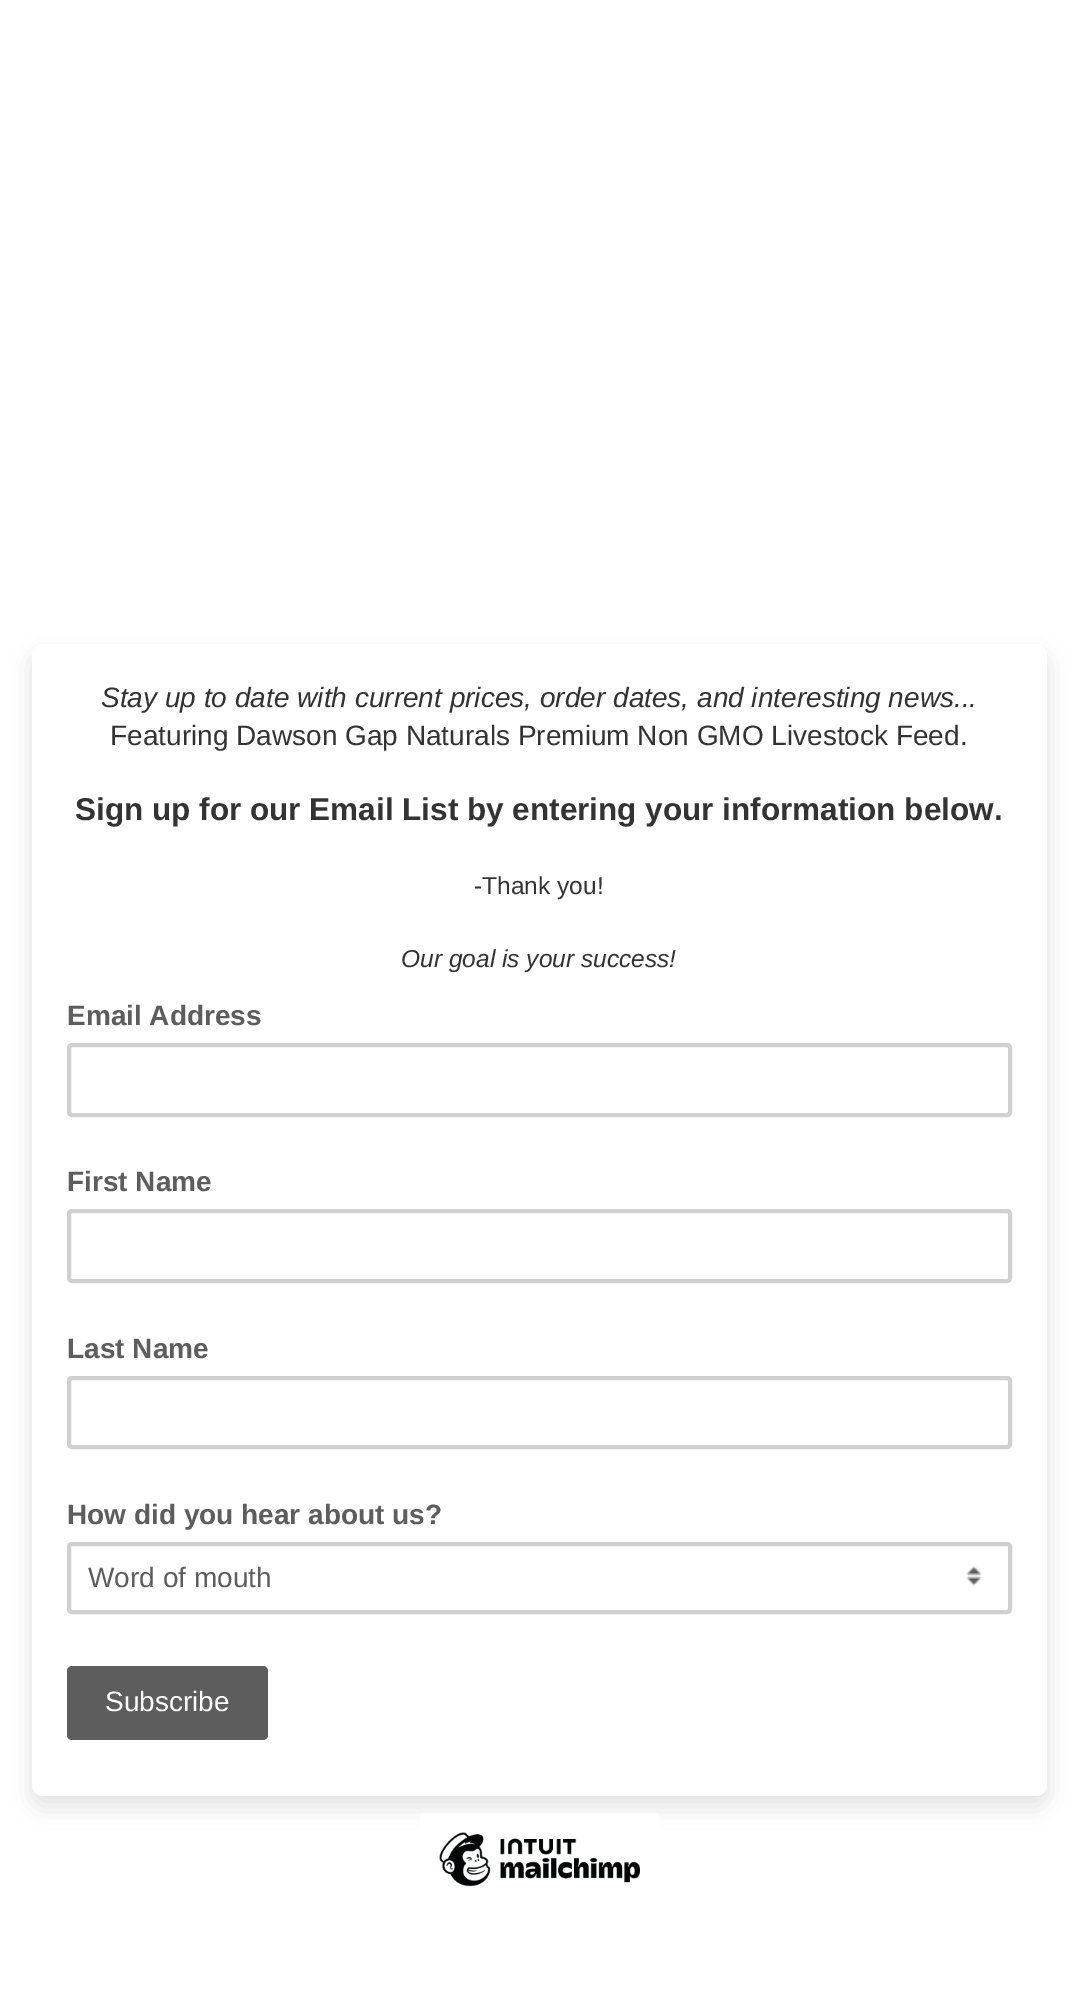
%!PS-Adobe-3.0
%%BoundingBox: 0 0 1078 2012
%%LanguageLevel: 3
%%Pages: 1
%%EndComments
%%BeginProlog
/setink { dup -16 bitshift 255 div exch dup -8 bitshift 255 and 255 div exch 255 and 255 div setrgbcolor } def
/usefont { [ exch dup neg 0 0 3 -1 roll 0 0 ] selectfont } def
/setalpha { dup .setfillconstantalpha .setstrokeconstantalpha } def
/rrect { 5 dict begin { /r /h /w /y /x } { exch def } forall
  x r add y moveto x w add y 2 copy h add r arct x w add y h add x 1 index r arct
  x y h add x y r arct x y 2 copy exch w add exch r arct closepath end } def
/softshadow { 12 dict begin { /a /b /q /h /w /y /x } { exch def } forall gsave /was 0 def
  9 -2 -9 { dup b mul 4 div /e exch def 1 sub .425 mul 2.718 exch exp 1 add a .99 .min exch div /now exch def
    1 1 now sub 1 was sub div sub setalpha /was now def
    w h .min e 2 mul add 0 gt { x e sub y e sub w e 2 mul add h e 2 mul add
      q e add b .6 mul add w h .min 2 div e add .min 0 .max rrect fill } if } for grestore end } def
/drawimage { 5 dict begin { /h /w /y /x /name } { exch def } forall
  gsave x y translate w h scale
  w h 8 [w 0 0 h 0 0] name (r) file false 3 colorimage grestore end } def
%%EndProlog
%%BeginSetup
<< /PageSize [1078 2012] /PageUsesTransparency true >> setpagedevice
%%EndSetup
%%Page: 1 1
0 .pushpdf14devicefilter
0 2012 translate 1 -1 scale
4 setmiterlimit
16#FFFFFF setink
0 0 1078 2012 rectfill
16#0D1216 setink
32 655 1015 1151 11 10.5 0.12 softshadow
16#FFFFFF setink
32 644 1015 1152 11 rrect fill
/LiberationSans-Italic 28 usefont
16#333333 setink
101 707 moveto (Stay up to date with current prices, order dates, and interesting news...) show
/LiberationSans-Regular 28 usefont
110 745 moveto (Featuring Dawson Gap Naturals Premium Non GMO Livestock Feed.) show
/LiberationSans-Bold 31.5 usefont
75 820 moveto (Sign up for our Email List by entering your information below.) show
/LiberationSans-Regular 24.5 usefont
474 894 moveto (-Thank you!) show
/LiberationSans-Italic 24.5 usefont
401 967 moveto (Our goal is your success!) show
/LiberationSans-Bold 28 usefont
16#5D5D5D setink
67 1025 moveto (Email Address) show
16#D0D0D0 setink
4 setlinewidth
69 1045 941 70 3 rrect stroke
16#5D5D5D setink
67 1191 moveto (First Name) show
16#D0D0D0 setink
69 1211 941 70 3 rrect stroke
16#5D5D5D setink
67 1358 moveto (Last Name) show
16#D0D0D0 setink
69 1378 941 69 3 rrect stroke
16#5D5D5D setink
67 1524 moveto (How did you hear about us?) show
(img1.raw) 966 1566 16 20 drawimage
16#D0D0D0 setink
69 1544 941 68 3 rrect stroke
/LiberationSans-Regular 28 usefont
16#5D5D5D setink
88 1587 moveto (Word of mouth) show
67 1666 201 74 5 rrect fill
16#FFFFFF setink
105 1711 moveto (Subscribe) show
(img2.raw) 420 1813 239 74 drawimage
.poppdf14devicefilter showpage
%%EOF
